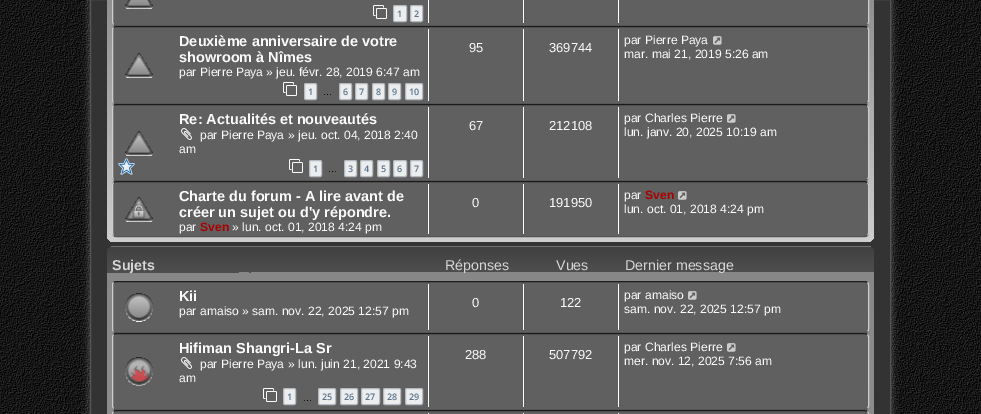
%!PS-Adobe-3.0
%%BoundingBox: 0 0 981 414
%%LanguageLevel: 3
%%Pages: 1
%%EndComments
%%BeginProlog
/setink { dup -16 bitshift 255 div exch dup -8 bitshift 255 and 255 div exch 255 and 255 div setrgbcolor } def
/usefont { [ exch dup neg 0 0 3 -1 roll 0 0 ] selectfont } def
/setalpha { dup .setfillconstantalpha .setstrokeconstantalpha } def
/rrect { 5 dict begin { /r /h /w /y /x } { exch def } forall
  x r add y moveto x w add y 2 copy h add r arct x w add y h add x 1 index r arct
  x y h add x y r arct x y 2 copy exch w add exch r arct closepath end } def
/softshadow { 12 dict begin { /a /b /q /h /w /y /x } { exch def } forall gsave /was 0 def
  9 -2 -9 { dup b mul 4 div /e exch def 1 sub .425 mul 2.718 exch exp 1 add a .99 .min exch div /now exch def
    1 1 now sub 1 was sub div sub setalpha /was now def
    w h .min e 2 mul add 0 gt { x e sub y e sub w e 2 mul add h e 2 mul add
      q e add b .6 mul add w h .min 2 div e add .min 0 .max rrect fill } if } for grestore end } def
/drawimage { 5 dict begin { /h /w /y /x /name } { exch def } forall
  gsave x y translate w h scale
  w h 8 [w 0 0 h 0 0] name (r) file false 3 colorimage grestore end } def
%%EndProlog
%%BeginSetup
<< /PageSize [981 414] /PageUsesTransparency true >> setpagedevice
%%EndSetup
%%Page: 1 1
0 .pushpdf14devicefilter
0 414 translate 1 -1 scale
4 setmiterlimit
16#FFFFFF setink
0 0 981 414 rectfill
(img1.raw) 0 0 981 414 drawimage
88 -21 805 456 12 3 0.2 softshadow
16#333333 setink
90.5 -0.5 moveto 890.5 -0.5 lineto 890.5 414.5 lineto 90.5 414.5 lineto closepath gsave fill grestore
16#535453 setink
stroke
16#8A8A8A setink
107 -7 767 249 7 rrect fill
gsave
107 -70 767 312 7 rrect clip newpath
gsave 107 -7 moveto 874 -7 lineto 874 235 lineto 874 239 871 242 867 242 curveto 114 242 lineto 110 242 107 239 107 235 curveto closepath clip newpath
<< /ShadingType 2 /ColorSpace /DeviceRGB /Coords [491 -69 491 413] /Extend [true true] /Function << /FunctionType 3 /Domain [0 1] /Functions [<< /FunctionType 2 /Domain [0 1] /C0 [0.255 0.255 0.255] /C1 [0.306 0.306 0.306] /N 1 >> << /FunctionType 2 /Domain [0 1] /C0 [0.306 0.306 0.306] /C1 [0.529 0.529 0.529] /N 1 >> << /FunctionType 2 /Domain [0 1] /C0 [0.529 0.529 0.529] /C1 [0.98 0.98 0.98] /N 1 >>] /Bounds [0.03 0.07] /Encode [0 1 0 1 0 1] >> >> shfill grestore
grestore
16#606060 setink
112 -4 757 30 4 rrect fill
16#CCCCCC setink
867.5 -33.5 moveto 868.5 -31.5 lineto 868.5 22.5 lineto 867.5 24.5 lineto stroke
16#555555 setink
867.5 24.5 moveto 865 25.5 lineto 116 25.5 lineto 113.5 24.5 lineto stroke
16#CCCCCC setink
113.5 24.5 moveto 112.5 22.5 lineto 112.5 -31.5 lineto 113.5 -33.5 lineto stroke
(img2.raw) 125 0 28 9 drawimage
(img3.raw) 373 5 14 14 drawimage
16#ECEDEE setink
393.5 5.5 13 16 1.5 rrect gsave fill grestore
16#B4BAC0 setink
stroke
/OpenSans-SemiBold 9 usefont
16#5C758C setink
397 17 moveto (1) show
16#ECEDEE setink
410.5 5.5 12 16 1.5 rrect gsave fill grestore
16#B4BAC0 setink
stroke
16#5C758C setink
414 17 moveto (2) show
[
    [428 0 1 23 16#FFFFFF]
    [523 0 1 23 16#FFFFFF]
    [618 0 1 23 16#FFFFFF]
] { aload pop setink rectfill } forall
16#606060 setink
112 26 757 78 4 rrect fill
16#1B1B1B setink
113.5 27.5 moveto 116 26.5 lineto 865 26.5 lineto 867.5 27.5 lineto stroke
16#CCCCCC setink
867.5 27.5 moveto 868 28 868.5 29 868.5 30 curveto 868.5 100 lineto 868.5 101 868 102 867.5 102.5 curveto stroke
16#555555 setink
867.5 102.5 moveto 865 103.5 lineto 116 103.5 lineto 113.5 102.5 lineto stroke
16#CCCCCC setink
113.5 102.5 moveto 113 102 112.5 101 112.5 100 curveto 112.5 30 lineto 112.5 29 113 28 113.5 27.5 curveto stroke
(img4.raw) 125 53 28 25 drawimage
/LiberationSans-Bold 14.5 usefont
16#FBFBFB setink
179 46 moveto (Deuxième anniversaire de votre) show
179 62 moveto (showroom à Nîmes) show
/LiberationSans-Regular 12.1 usefont
[
    [(par) 179 76]
    [(Pierre Paya) 200 76]
    [(» jeu. févr. 28, 2019 6:47 am) 266 76]
] { aload pop moveto show } forall
(img3.raw) 283 82 14 14 drawimage
16#ECEDEE setink
304.5 83.5 12 16 1.5 rrect gsave fill grestore
16#B4BAC0 setink
stroke
/OpenSans-SemiBold 9 usefont
16#5C758C setink
308 95 moveto (1) show
/LiberationSans-Regular 9 usefont
16#000000 setink
323 95 moveto (…) show
16#ECEDEE setink
339.5 83.5 12 16 1.5 rrect gsave fill grestore
16#B4BAC0 setink
stroke
/OpenSans-SemiBold 9 usefont
16#5C758C setink
343 95 moveto (6) show
16#ECEDEE setink
355.5 83.5 12 16 1.5 rrect gsave fill grestore
16#B4BAC0 setink
stroke
16#5C758C setink
359 95 moveto (7) show
16#ECEDEE setink
372.5 83.5 12 16 1.5 rrect gsave fill grestore
16#B4BAC0 setink
stroke
16#5C758C setink
376 95 moveto (8) show
16#ECEDEE setink
388.5 83.5 12 16 1.5 rrect gsave fill grestore
16#B4BAC0 setink
stroke
16#5C758C setink
392 95 moveto (9) show
16#ECEDEE setink
405.5 83.5 17 16 1.5 rrect gsave fill grestore
16#B4BAC0 setink
stroke
16#5C758C setink
409 95 moveto (10) show
16#FFFFFF setink
428 29 1 72 rectfill
/LiberationSans-Regular 13 usefont
16#FBFBFB setink
469 52 moveto (95) show
16#FFFFFF setink
523 29 1 72 rectfill
16#FBFBFB setink
549 52 moveto (369744) show
16#FFFFFF setink
618 29 1 72 rectfill
/LiberationSans-Regular 12.1 usefont
16#FBFBFB setink
624 44 moveto (par) show
645 44 moveto (Pierre Paya) show
(img5.raw) 713 36 9 9 drawimage
624 58 moveto (mar. mai 21, 2019 5:26 am) show
16#606060 setink
112 104 757 77 4 rrect fill
16#1B1B1B setink
113.5 105.5 moveto 116 104.5 lineto 865 104.5 lineto 867.5 105.5 lineto stroke
16#CCCCCC setink
867.5 105.5 moveto 868.5 107.5 lineto 868.5 177.5 lineto 867.5 179.5 lineto stroke
16#555555 setink
867.5 179.5 moveto 865 180.5 lineto 116 180.5 lineto 113.5 179.5 lineto stroke
16#CCCCCC setink
113.5 179.5 moveto 112.5 177.5 lineto 112.5 107.5 lineto 113.5 105.5 lineto stroke
(img4.raw) 125 131 28 25 drawimage
(img6.raw) 118 158 17 17 drawimage
/LiberationSans-Bold 14.5 usefont
16#FBFBFB setink
179 124 moveto (Re: Actualités et nouveautés) show
(img7.raw) 181 128 11 12 drawimage
/LiberationSans-Regular 12.1 usefont
[
    [(par) 200 139]
    [(Pierre Paya) 221 139]
    [(» jeu. oct. 04, 2018 2:40) 288 139]
    [(am) 179 153]
] { aload pop moveto show } forall
(img3.raw) 289 159 14 14 drawimage
16#ECEDEE setink
309.5 160.5 12 16 1.5 rrect gsave fill grestore
16#B4BAC0 setink
stroke
/OpenSans-SemiBold 9 usefont
16#5C758C setink
313 172 moveto (1) show
/LiberationSans-Regular 9 usefont
16#000000 setink
328 172 moveto (…) show
16#ECEDEE setink
344.5 160.5 12 16 1.5 rrect gsave fill grestore
16#B4BAC0 setink
stroke
/OpenSans-SemiBold 9 usefont
16#5C758C setink
348 172 moveto (3) show
16#ECEDEE setink
360.5 160.5 12 16 1.5 rrect gsave fill grestore
16#B4BAC0 setink
stroke
16#5C758C setink
364 172 moveto (4) show
16#ECEDEE setink
377.5 160.5 12 16 1.5 rrect gsave fill grestore
16#B4BAC0 setink
stroke
16#5C758C setink
381 172 moveto (5) show
16#ECEDEE setink
393.5 160.5 13 16 1.5 rrect gsave fill grestore
16#B4BAC0 setink
stroke
16#5C758C setink
397 172 moveto (6) show
16#ECEDEE setink
410.5 160.5 12 16 1.5 rrect gsave fill grestore
16#B4BAC0 setink
stroke
16#5C758C setink
414 172 moveto (7) show
16#FFFFFF setink
428 107 1 71 rectfill
/LiberationSans-Regular 13 usefont
16#FBFBFB setink
469 130 moveto (67) show
16#FFFFFF setink
523 107 1 71 rectfill
16#FBFBFB setink
549 130 moveto (212108) show
16#FFFFFF setink
618 107 1 71 rectfill
/LiberationSans-Regular 12.1 usefont
16#FBFBFB setink
624 122 moveto (par) show
645 122 moveto (Charles Pierre) show
(img5.raw) 727 114 9 9 drawimage
624 136 moveto (lun. janv. 20, 2025 10:19 am) show
16#606060 setink
112 181 757 56 4 rrect fill
16#1B1B1B setink
113.5 182.5 moveto 116 181.5 lineto 865 181.5 lineto 867.5 182.5 lineto stroke
16#CCCCCC setink
867.5 182.5 moveto 868.5 184.5 lineto 868.5 233.5 lineto 867.5 235.5 lineto stroke
16#555555 setink
867.5 235.5 moveto 865 236.5 lineto 116 236.5 lineto 113.5 235.5 lineto stroke
16#CCCCCC setink
113.5 235.5 moveto 112.5 233.5 lineto 112.5 184.5 lineto 113.5 182.5 lineto stroke
(img8.raw) 125 197 28 25 drawimage
/LiberationSans-Bold 14.5 usefont
16#FBFBFB setink
179 201 moveto (Charte du forum - A lire avant de) show
179 217 moveto (créer un sujet ou d'y répondre.) show
/LiberationSans-Regular 12.1 usefont
179 231 moveto (par) show
/LiberationSans-Bold 12.1 usefont
16#AA0000 setink
200 231 moveto (Sven) show
/LiberationSans-Regular 12.1 usefont
16#FBFBFB setink
232 231 moveto (» lun. oct. 01, 2018 4:24 pm) show
16#FFFFFF setink
428 184 1 50 rectfill
/LiberationSans-Regular 13 usefont
16#FBFBFB setink
472 207 moveto (0) show
16#FFFFFF setink
523 184 1 50 rectfill
16#FBFBFB setink
549 207 moveto (191950) show
16#FFFFFF setink
618 184 1 50 rectfill
/LiberationSans-Regular 12.1 usefont
16#FBFBFB setink
624 199 moveto (par) show
/LiberationSans-Bold 12.1 usefont
16#AA0000 setink
645 199 moveto (Sven) show
(img5.raw) 678 191 9 9 drawimage
/LiberationSans-Regular 12.1 usefont
16#FBFBFB setink
624 213 moveto (lun. oct. 01, 2018 4:24 pm) show
gsave
107 246 767 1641 7 rrect clip newpath
gsave 107 247 moveto 874 247 lineto 874 414 lineto 874 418 871 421 867 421 curveto 114 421 lineto 110 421 107 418 107 414 curveto closepath clip newpath
<< /ShadingType 2 /ColorSpace /DeviceRGB /Coords [490 247 491 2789] /Extend [true true] /Function << /FunctionType 3 /Domain [0 1] /Functions [<< /FunctionType 2 /Domain [0 1] /C0 [0.255 0.255 0.255] /C1 [0.306 0.306 0.306] /N 1 >> << /FunctionType 2 /Domain [0 1] /C0 [0.529 0.529 0.529] /C1 [0.98 0.98 0.98] /N 1 >>] /Bounds [0.01] /Encode [0 1 0 1] >> >> shfill grestore
grestore
16#707070 setink
111 246 760 1 rectfill
/LiberationSans-Bold 14.25 usefont
16#D6D6D6 setink
112 270 moveto (Sujets) show
/LiberationSans-Regular 14.25 usefont
[
    [(Réponses) 445 270]
    [(Vues) 556 270]
    [(Dernier message) 625 270]
] { aload pop moveto show } forall
16#606060 setink
112 281 757 52 4 rrect fill
16#1B1B1B setink
113.5 282.5 moveto 116 281.5 lineto 865 281.5 lineto 867.5 282.5 lineto stroke
16#CCCCCC setink
867.5 282.5 moveto 868 283 868.5 284 868.5 285 curveto 868.5 329 lineto 868.5 330 868 331 867.5 331.5 curveto stroke
16#555555 setink
867.5 331.5 moveto 865 332.5 lineto 116 332.5 lineto 113.5 331.5 lineto stroke
16#CCCCCC setink
113.5 331.5 moveto 113 331 112.5 330 112.5 329 curveto 112.5 285 lineto 112.5 284 113 283 113.5 282.5 curveto stroke
(img9.raw) 125 293 28 29 drawimage
/LiberationSans-Bold 14.5 usefont
16#FBFBFB setink
179 301 moveto (Kii) show
/LiberationSans-Regular 12.1 usefont
[
    [(par) 179 315]
    [(amaiso) 200 315]
    [(» sam. nov. 22, 2025 12:57 pm) 242 315]
] { aload pop moveto show } forall
16#FFFFFF setink
428 284 1 46 rectfill
/LiberationSans-Regular 13 usefont
16#FBFBFB setink
472 307 moveto (0) show
16#FFFFFF setink
523 284 1 46 rectfill
16#FBFBFB setink
560 307 moveto (122) show
16#FFFFFF setink
618 284 1 46 rectfill
/LiberationSans-Regular 12.1 usefont
16#FBFBFB setink
624 299 moveto (par) show
645 299 moveto (amaiso) show
(img5.raw) 688 291 9 9 drawimage
624 313 moveto (sam. nov. 22, 2025 12:57 pm) show
16#606060 setink
112 333 757 77 4 rrect fill
16#1B1B1B setink
113.5 334.5 moveto 116 333.5 lineto 865 333.5 lineto 867.5 334.5 lineto stroke
16#CCCCCC setink
867.5 334.5 moveto 868.5 336.5 lineto 868.5 406.5 lineto 867.5 408.5 lineto stroke
16#555555 setink
867.5 408.5 moveto 865 409.5 lineto 116 409.5 lineto 113.5 408.5 lineto stroke
16#CCCCCC setink
113.5 408.5 moveto 112.5 406.5 lineto 112.5 336.5 lineto 113.5 334.5 lineto stroke
(img10.raw) 125 357 28 29 drawimage
/LiberationSans-Bold 14.5 usefont
16#FBFBFB setink
179 353 moveto (Hifiman Shangri-La Sr) show
(img7.raw) 181 357 11 12 drawimage
/LiberationSans-Regular 12.1 usefont
[
    [(par) 200 368]
    [(Pierre Paya) 221 368]
    [(» lun. juin 21, 2021 9:43) 288 368]
    [(am) 179 382]
] { aload pop moveto show } forall
(img3.raw) 263 388 14 14 drawimage
16#ECEDEE setink
283.5 388.5 12 16 1.5 rrect gsave fill grestore
16#B4BAC0 setink
stroke
/OpenSans-SemiBold 9 usefont
16#5C758C setink
287 400 moveto (1) show
/LiberationSans-Regular 9 usefont
16#000000 setink
303 401 moveto (…) show
16#ECEDEE setink
318.5 388.5 17 16 1.5 rrect gsave fill grestore
16#B4BAC0 setink
stroke
/OpenSans-SemiBold 9 usefont
16#5C758C setink
322 400 moveto (25) show
16#ECEDEE setink
340.5 388.5 17 16 1.5 rrect gsave fill grestore
16#B4BAC0 setink
stroke
16#5C758C setink
344 400 moveto (26) show
16#ECEDEE setink
361.5 388.5 18 16 1.5 rrect gsave fill grestore
16#B4BAC0 setink
stroke
16#5C758C setink
365 400 moveto (27) show
16#ECEDEE setink
383.5 388.5 17 16 1.5 rrect gsave fill grestore
16#B4BAC0 setink
stroke
16#5C758C setink
387 400 moveto (28) show
16#ECEDEE setink
405.5 388.5 17 16 1.5 rrect gsave fill grestore
16#B4BAC0 setink
stroke
16#5C758C setink
409 400 moveto (29) show
16#FFFFFF setink
428 336 1 71 rectfill
/LiberationSans-Regular 13 usefont
16#FBFBFB setink
465 359 moveto (288) show
16#FFFFFF setink
523 336 1 71 rectfill
16#FBFBFB setink
549 359 moveto (507792) show
16#FFFFFF setink
618 336 1 71 rectfill
/LiberationSans-Regular 12.1 usefont
16#FBFBFB setink
624 351 moveto (par) show
645 351 moveto (Charles Pierre) show
(img5.raw) 727 343 9 9 drawimage
624 365 moveto (mer. nov. 12, 2025 7:56 am) show
16#606060 setink
112 410 757 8 4 rrect fill
16#1B1B1B setink
113.5 411.5 moveto 116 410.5 lineto 865 410.5 lineto 867.5 411.5 lineto stroke
16#CCCCCC setink
867.5 411.5 moveto 868 412 868.5 413 868.5 414 curveto 868.5 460 lineto 868.5 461 868 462 867.5 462.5 curveto stroke
113.5 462.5 moveto 113 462 112.5 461 112.5 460 curveto 112.5 414 lineto 112.5 413 113 412 113.5 411.5 curveto stroke
[
    [428 413 1 1 16#FFFFFF]
    [523 413 1 1 16#FFFFFF]
    [618 413 1 1 16#FFFFFF]
] { aload pop setink rectfill } forall
.poppdf14devicefilter showpage
%%EOF
